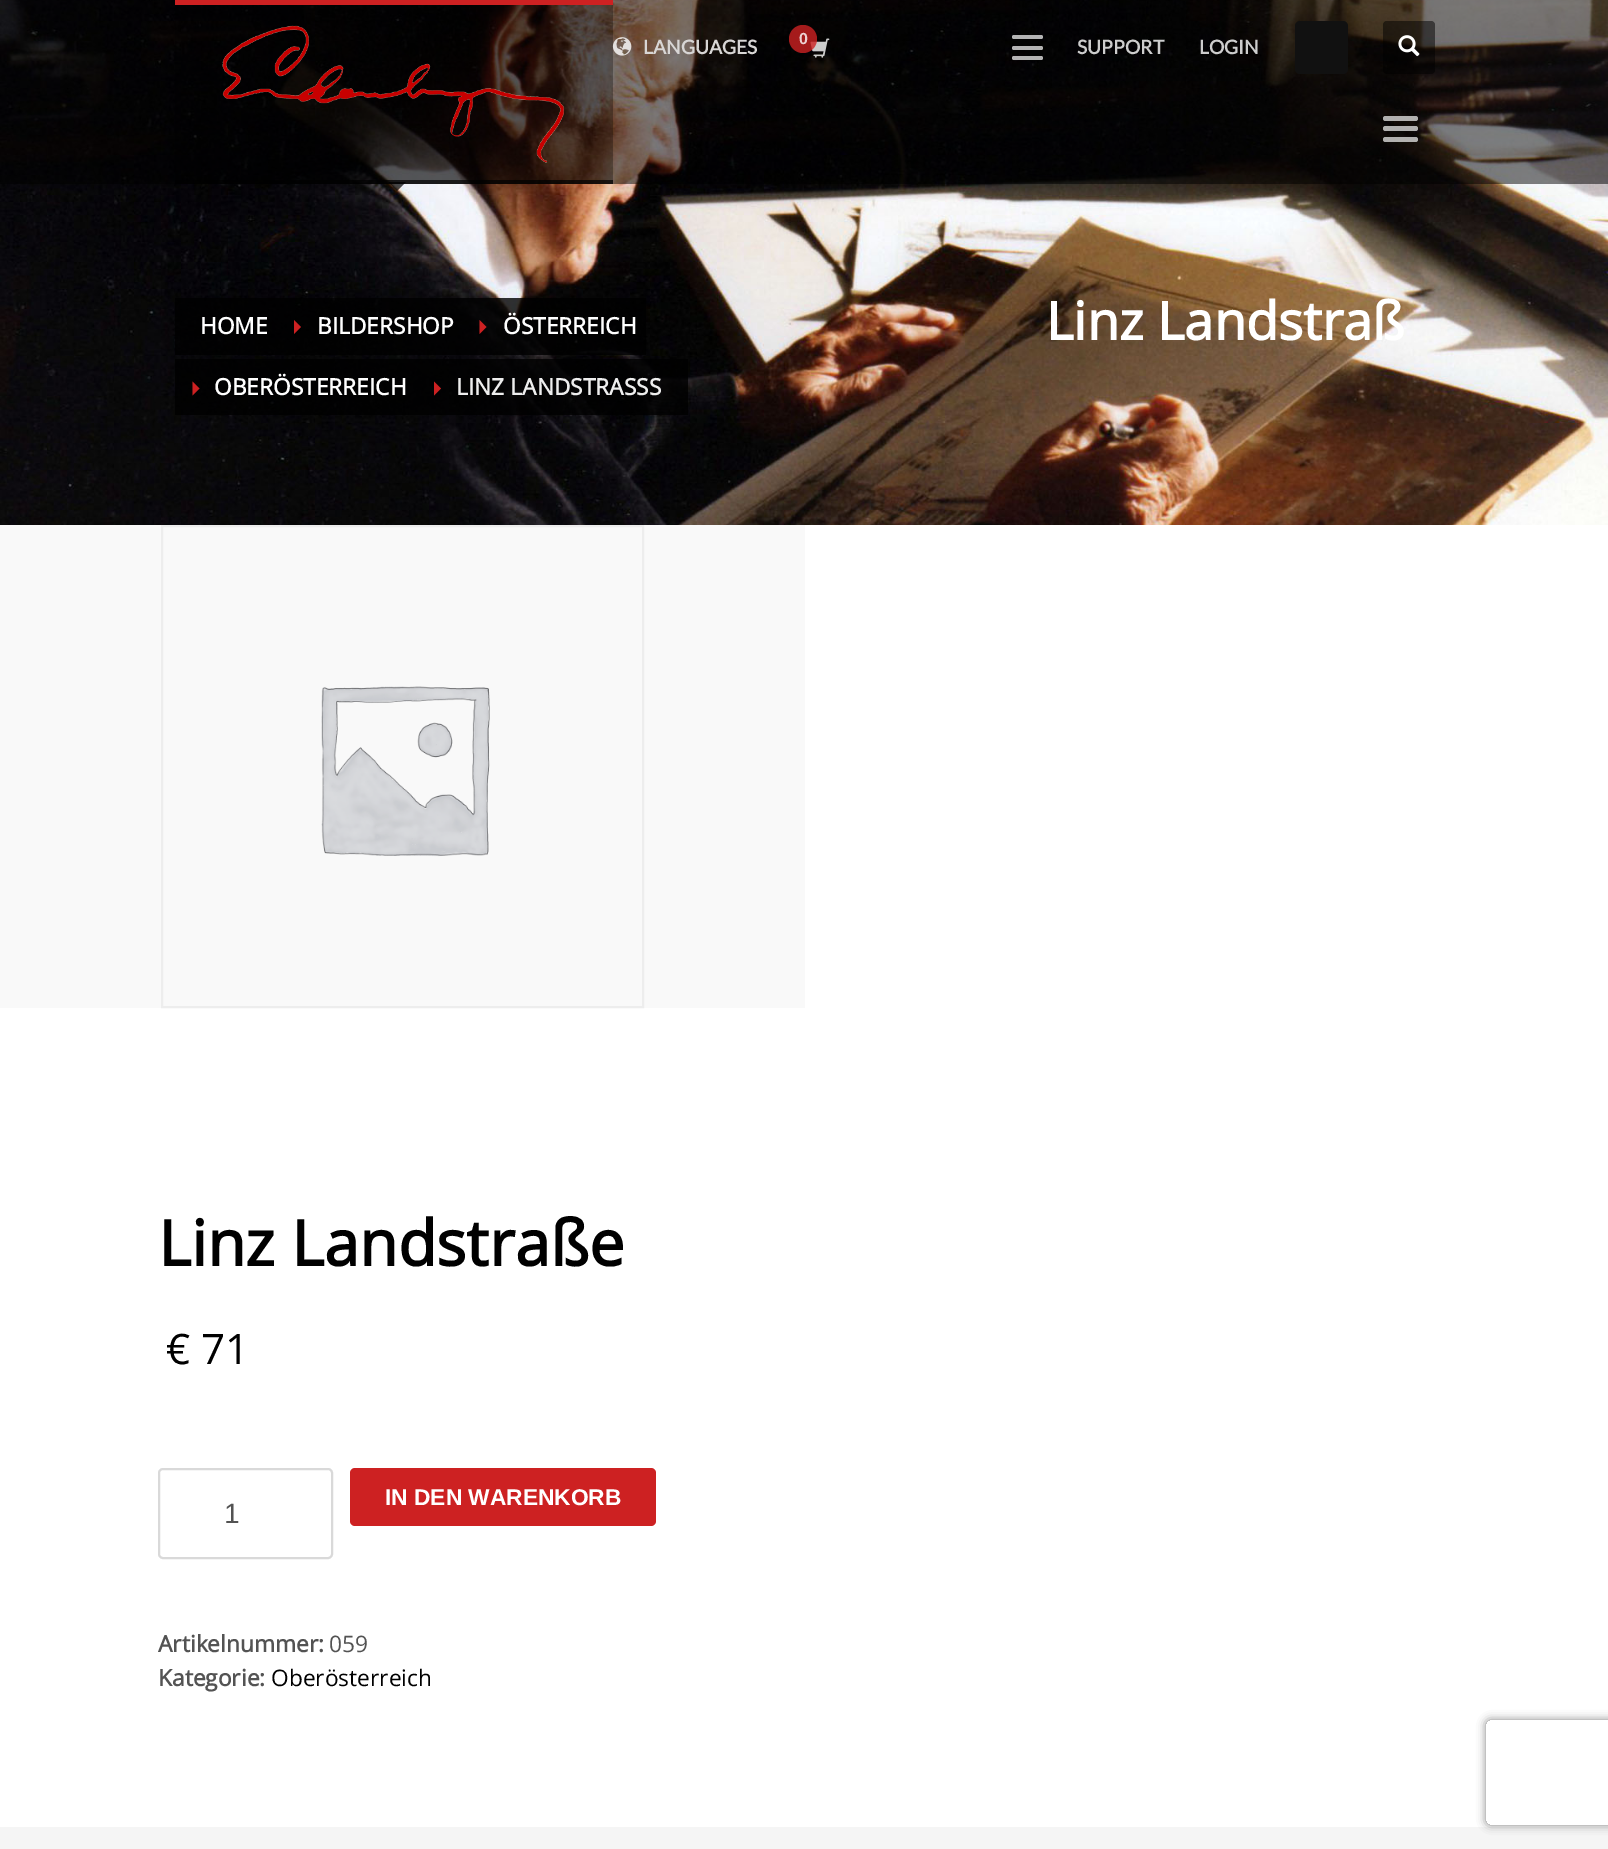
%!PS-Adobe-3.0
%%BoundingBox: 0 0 1608 1849
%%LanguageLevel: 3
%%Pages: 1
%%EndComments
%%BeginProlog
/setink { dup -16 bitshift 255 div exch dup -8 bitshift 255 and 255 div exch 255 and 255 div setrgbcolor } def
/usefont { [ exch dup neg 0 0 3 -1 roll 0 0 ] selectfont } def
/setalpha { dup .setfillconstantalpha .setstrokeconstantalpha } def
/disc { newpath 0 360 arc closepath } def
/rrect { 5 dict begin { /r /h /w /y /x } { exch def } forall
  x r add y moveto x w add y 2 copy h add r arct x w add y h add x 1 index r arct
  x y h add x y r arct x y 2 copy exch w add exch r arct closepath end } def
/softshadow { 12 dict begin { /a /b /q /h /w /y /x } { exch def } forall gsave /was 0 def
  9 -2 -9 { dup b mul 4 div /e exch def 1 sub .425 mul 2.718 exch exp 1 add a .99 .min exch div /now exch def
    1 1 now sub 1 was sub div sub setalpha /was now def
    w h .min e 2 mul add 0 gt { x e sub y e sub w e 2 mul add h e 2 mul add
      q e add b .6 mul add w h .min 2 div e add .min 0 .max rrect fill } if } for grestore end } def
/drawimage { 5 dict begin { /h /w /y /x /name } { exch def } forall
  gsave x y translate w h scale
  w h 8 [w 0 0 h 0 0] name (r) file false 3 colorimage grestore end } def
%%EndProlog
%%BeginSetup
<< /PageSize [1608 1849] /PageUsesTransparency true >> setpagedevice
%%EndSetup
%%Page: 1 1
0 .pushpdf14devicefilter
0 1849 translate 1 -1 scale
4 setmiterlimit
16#F5F5F5 setink
0 0 1608 1849 rectfill
(img5.raw) 0 0 1608 525 drawimage
0.5 setalpha
[
    [0 0 1608 184 16#000000]
] { aload pop setink rectfill } forall
0.3 setalpha
[
    [175 5 438 179 16#000000]
] { aload pop setink rectfill } forall
1 setalpha
[
    [175 0 438 5 16#CD2122]
] { aload pop setink rectfill } forall
0.7 setalpha
[
    [175 180 438 4 16#000000]
] { aload pop setink rectfill } forall
1 setalpha
(img1.raw) 222 25 342 138 drawimage
0.7 setalpha
388.5 182 moveto 406 182 lineto 397 191 lineto closepath fill
1 setalpha
(img2.raw) 612 37 20 19 drawimage
/Lato-Bold 19.25 usefont
16#D8D6D5 setink
643 54 moveto (LANGUAGES) show
(img3.raw) 810 38 20 20 drawimage
0.8 setalpha
16#CD2122 setink
803 39 14 disc fill
/LiberationSans-Bold 16 usefont
1 setalpha
16#EDD1D2 setink
799 44 moveto (0) show
0.7 setalpha
16#FFFFFF setink
1012 56 31 4 2 rrect fill
1012 46 31 4 2 rrect fill
1012 35 31 4 2 rrect fill
/Lato-Bold 19.25 usefont
1 setalpha
16#CDCDCD setink
1077 54 moveto (SUPPORT) show
1199 54 moveto (LOGIN) show
16#111111 setink
1295 21 53 53 5 rrect fill
0.5 setalpha
16#000000 setink
1383 21 52 53 4 rrect fill
1 setalpha
(img4.raw) 1398 35 22 22 drawimage
0.68 setalpha
16#FFFFFF setink
1383 116 35 5 2.5 rrect fill
1383 126 35 5 2.5 rrect fill
1383 137 35 5 2.5 rrect fill
0.8 setalpha
16#000000 setink
175 298 102 57 rectfill
/OpenSans-Bold 22.75 usefont
1 setalpha
16#FFFFFF setink
200 334 moveto (HOME) show
0.8 setalpha
16#000000 setink
277 298 185 57 rectfill
1 setalpha
16#CD2122 setink
294 334 moveto 294 320 lineto 301 327 lineto closepath fill
16#FFFFFF setink
317 334 moveto (BILDERSHOP) show
0.8 setalpha
16#000000 setink
462 298 184 57 rectfill
1 setalpha
16#CD2122 setink
479.5 334 moveto 479.5 320 lineto 486.5 327 lineto closepath fill
16#FFFFFF setink
503 334 moveto (ÖSTERREICH) show
0.8 setalpha
16#000000 setink
175 359 242 56 rectfill
1 setalpha
16#CD2122 setink
192.5 395.5 moveto 192.5 381.5 lineto 199.5 388.5 lineto closepath fill
16#FFFFFF setink
214 395 moveto (OBERÖSTERREICH) show
0.8 setalpha
16#000000 setink
417 359 271 56 rectfill
1 setalpha
16#CD2122 setink
434 395.5 moveto 434 381.5 lineto 441 388.5 lineto closepath fill
16#EEEEEE setink
456 395 moveto (LINZ LANDSTRASSS) show
/OpenSans-Bold 52.5 usefont
16#FFFFFF setink
1046 340 moveto (Linz Landstraß) show
0 525 1608 1302 rectfill
16#F9F9F9 setink
0 525 805 483 rectfill
16#EDEDED setink
2 setlinewidth
162 526 481 481 rectstroke
(img6.raw) 321 686 169 171 drawimage
/OpenSans-Bold 63 usefont
16#000000 setink
158 1266 moveto (Linz Landstraße) show
/OpenSans-Regular 42 usefont
166 1364 moveto (€ 71) show
16#CD2122 setink
350 1468 306 58 5 rrect fill
/LiberationSans-Bold 22.75 usefont
16#FFFFFF setink
385 1505 moveto (IN DEN WARENKORB) show
16#D9D9D9 setink
159 1469 173 89 4 rrect stroke
/LiberationSans-Regular 28 usefont
16#535353 setink
224 1523 moveto (1) show
/OpenSans-Bold 22.75 usefont
158 1652 moveto (Artikelnummer:) show
/OpenSans-Regular 22.75 usefont
329 1652 moveto (059) show
/OpenSans-Bold 22.75 usefont
158 1686 moveto (Kategorie:) show
/OpenSans-Regular 22.75 usefont
16#000000 setink
271 1686 moveto (Oberösterreich) show
gsave
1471 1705 moveto 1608 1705 lineto 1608 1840 lineto 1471 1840 lineto closepath 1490 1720 moveto 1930 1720 lineto 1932 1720 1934 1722 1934 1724 curveto 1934 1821 lineto 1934 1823 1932 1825 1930 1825 curveto 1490 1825 lineto 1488 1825 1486 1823 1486 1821 curveto 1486 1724 lineto 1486 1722 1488 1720 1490 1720 curveto closepath eoclip newpath
16#808080 setink
1486 1720 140 105 4 4.5 1 softshadow
grestore
.poppdf14devicefilter showpage
%%EOF
